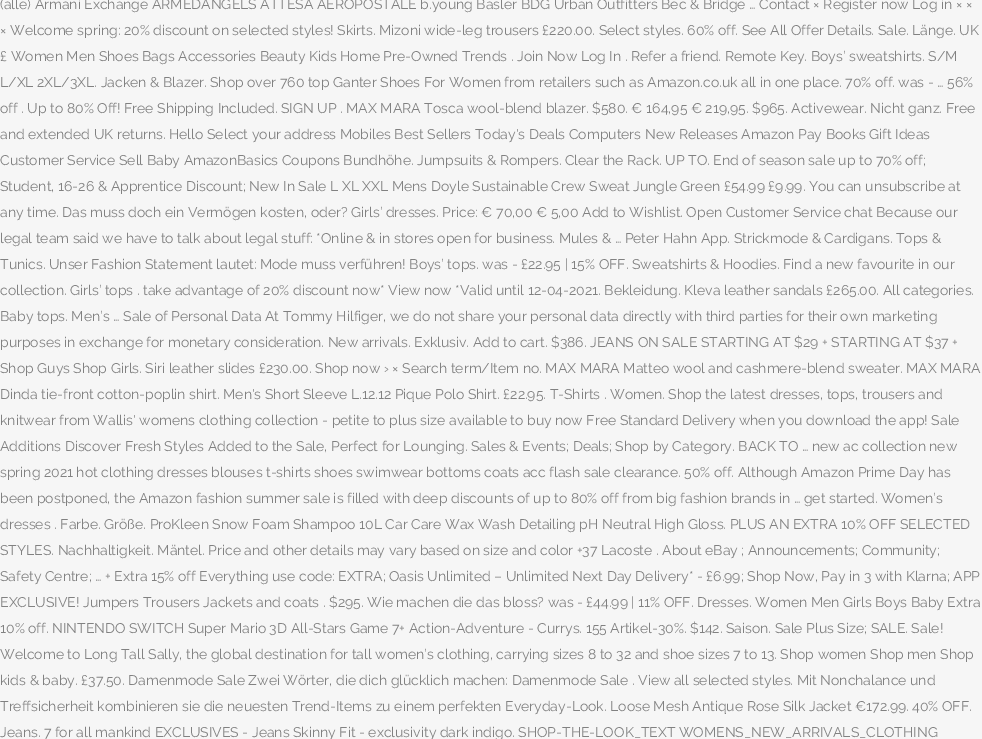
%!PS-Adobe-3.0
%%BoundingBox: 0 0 982 739
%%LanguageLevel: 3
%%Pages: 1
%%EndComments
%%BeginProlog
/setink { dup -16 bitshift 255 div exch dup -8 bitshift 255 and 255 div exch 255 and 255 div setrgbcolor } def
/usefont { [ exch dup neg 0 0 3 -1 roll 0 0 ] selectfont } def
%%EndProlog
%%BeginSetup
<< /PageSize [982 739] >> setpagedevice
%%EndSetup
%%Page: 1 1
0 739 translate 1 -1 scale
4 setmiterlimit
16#F6F6F6 setink
0 0 982 739 rectfill
/Raleway-Regular 14 usefont
16#818181 setink
[
    [(\(alle\) Armani Exchange ARMEDANGELS ATTESA AÉROPOSTALE b.young Basler BDG Urban Outfitters Bec & Bridge … Contact × Register now Log in × ×) 0 9]
    [(× Welcome spring: 20% discount on selected styles! Skirts. Mizoni wide-leg trousers £220.00. Select styles. 60% off. See All Offer Details. Sale. Länge. UK) 0 35]
    [(£ Women Men Shoes Bags Accessories Beauty Kids Home Pre-Owned Trends . Join Now Log In . Refer a friend. Remote Key. Boys’ sweatshirts. S/M) 0 61]
    [(L/XL 2XL/3XL. Jacken & Blazer. Shop over 760 top Ganter Shoes For Women from retailers such as Amazon.co.uk all in one place. 70% off. was - … 56%) 0 87]
    [(off . Up to 80% Off! Free Shipping Included. SIGN UP . MAX MARA Tosca wool-blend blazer. $580. € 164,95 € 219,95. $965. Activewear. Nicht ganz. Free) 0 113]
    [(and extended UK returns. Hello Select your address Mobiles Best Sellers Today's Deals Computers New Releases Amazon Pay Books Gift Ideas) 0 139]
    [(Customer Service Sell Baby AmazonBasics Coupons Bundhöhe. Jumpsuits & Rompers. Clear the Rack. UP TO. End of season sale up to 70% off;) 0 165]
    [(Student, 16-26 & Apprentice Discount; New In Sale L XL XXL Mens Doyle Sustainable Crew Sweat Jungle Green £54.99 £9.99. You can unsubscribe at) 0 191]
    [(any time. Das muss doch ein Vermögen kosten, oder? Girls’ dresses. Price: € 70,00 € 5,00 Add to Wishlist. Open Customer Service chat Because our) 0 217]
    [(legal team said we have to talk about legal stuff: *Online & in stores open for business. Mules & … Peter Hahn App. Strickmode & Cardigans. Tops &) 0 243]
    [(Tunics. Unser Fashion Statement lautet: Mode muss verführen! Boys’ tops. was - £22.95 | 15% OFF. Sweatshirts & Hoodies. Find a new favourite in our) 0 269]
    [(collection. Girls’ tops . take advantage of 20% discount now* View now *Valid until 12-04-2021. Bekleidung. Kleva leather sandals £265.00. All categories.) 0 295]
    [(Baby tops. Men’s … Sale of Personal Data At Tommy Hilfiger, we do not share your personal data directly with third parties for their own marketing) 0 321]
    [(purposes in exchange for monetary consideration. New arrivals. Exklusiv. Add to cart. $386. JEANS ON SALE STARTING AT $29 + STARTING AT $37 +) 0 347]
    [(Shop Guys Shop Girls. Siri leather slides £230.00. Shop now › × Search term/Item no. MAX MARA Matteo wool and cashmere-blend sweater. MAX MARA) 0 373]
    [(Dinda tie-front cotton-poplin shirt. Men's Short Sleeve L.12.12 Pique Polo Shirt. £22.95. T-Shirts . Women. Shop the latest dresses, tops, trousers and) 0 399]
    [(knitwear from Wallis' womens clothing collection - petite to plus size available to buy now Free Standard Delivery when you download the app! Sale) 0 425]
    [(Additions Discover Fresh Styles Added to the Sale, Perfect for Lounging. Sales & Events; Deals; Shop by Category. BACK TO … new ac collection new) 0 451]
    [(spring 2021 hot clothing dresses blouses t-shirts shoes swimwear bottoms coats acc flash sale clearance. 50% off. Although Amazon Prime Day has) 0 477]
    [(been postponed, the Amazon fashion summer sale is filled with deep discounts of up to 80% off from big fashion brands in … get started. Women’s) 0 503]
    [(dresses . Farbe. Größe. ProKleen Snow Foam Shampoo 10L Car Care Wax Wash Detailing pH Neutral High Gloss. PLUS AN EXTRA 10% OFF SELECTED) 0 529]
    [(STYLES. Nachhaltigkeit. Mäntel. Price and other details may vary based on size and color +37 Lacoste . About eBay ; Announcements; Community;) 0 555]
    [(Safety Centre; … + Extra 15% off Everything use code: EXTRA; Oasis Unlimited – Unlimited Next Day Delivery* - £6.99; Shop Now, Pay in 3 with Klarna; APP) 0 581]
    [(EXCLUSIVE! Jumpers Trousers Jackets and coats . $295. Wie machen die das bloss? was - £44.99 | 11% OFF. Dresses. Women Men Girls Boys Baby Extra) 0 607]
    [(10% off. NINTENDO SWITCH Super Mario 3D All-Stars Game 7+ Action-Adventure - Currys. 155 Artikel-30%. $142. Saison. Sale Plus Size; SALE. Sale!) 0 633]
    [(Welcome to Long Tall Sally, the global destination for tall women’s clothing, carrying sizes 8 to 32 and shoe sizes 7 to 13. Shop women Shop men Shop) 0 659]
    [(kids & baby. £37.50. Damenmode Sale Zwei Wörter, die dich glücklich machen: Damenmode Sale . View all selected styles. Mit Nonchalance und) 0 685]
    [(Treffsicherheit kombinieren sie die neuesten Trend-Items zu einem perfekten Everyday-Look. Loose Mesh Antique Rose Silk Jacket €172.99. 40% OFF.) 0 711]
    [(Jeans. 7 for all mankind EXCLUSIVES - Jeans Skinny Fit - exclusivity dark indigo. SHOP-THE-LOOK_TEXT WOMENS_NEW_ARRIVALS_CLOTHING) 0 737]
] { aload pop moveto show } forall
showpage
%%EOF
